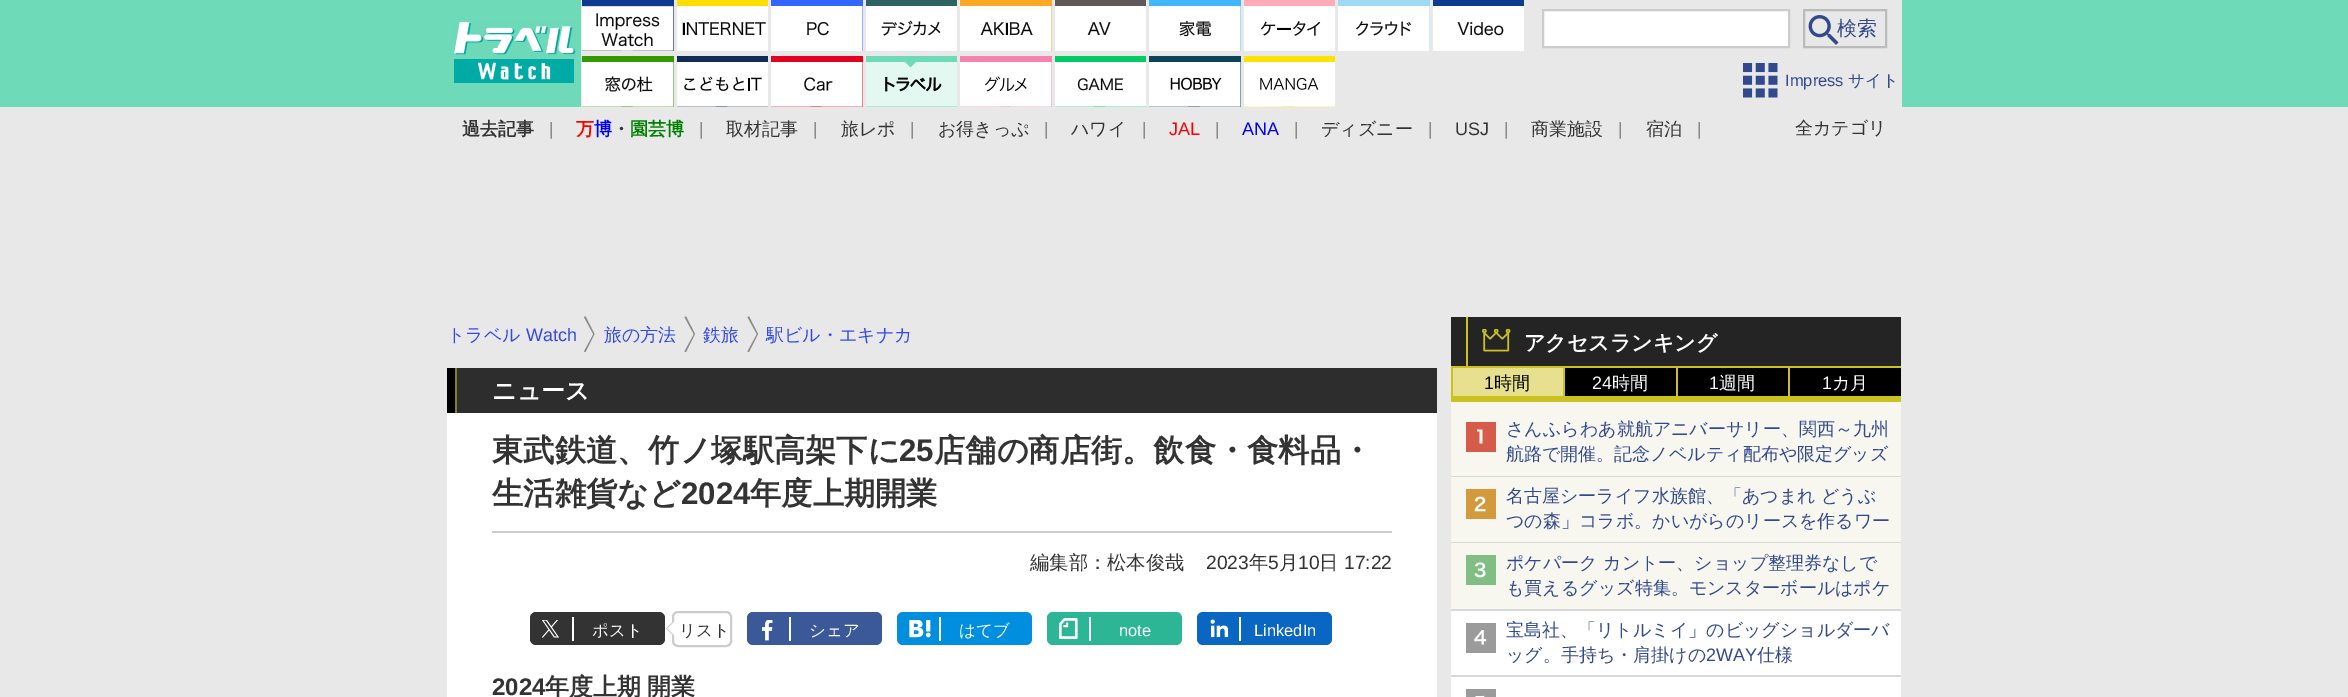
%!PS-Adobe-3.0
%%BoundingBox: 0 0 2348 697
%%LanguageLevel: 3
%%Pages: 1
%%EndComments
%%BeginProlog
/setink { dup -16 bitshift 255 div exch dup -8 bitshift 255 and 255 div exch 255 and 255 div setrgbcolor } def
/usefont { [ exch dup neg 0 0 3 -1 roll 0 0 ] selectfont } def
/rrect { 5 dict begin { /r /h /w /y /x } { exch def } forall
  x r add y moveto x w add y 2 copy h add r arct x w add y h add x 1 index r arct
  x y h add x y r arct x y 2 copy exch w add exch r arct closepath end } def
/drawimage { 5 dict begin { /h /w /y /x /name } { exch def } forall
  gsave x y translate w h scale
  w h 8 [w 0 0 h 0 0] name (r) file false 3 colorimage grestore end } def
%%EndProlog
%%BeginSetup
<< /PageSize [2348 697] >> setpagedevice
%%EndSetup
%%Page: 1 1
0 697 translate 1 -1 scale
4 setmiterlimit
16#E8E8E8 setink
0 0 2348 697 rectfill
16#6EDAB8 setink
0 0 2348 107 rectfill
(img1.raw) 454 22 122 61 drawimage
16#E8E8E8 setink
581 0 1321 107 rectfill
16#0D3B91 setink
582 0 92 51 rectfill
(img2.raw) 582 6 92 45 drawimage
16#FFDE00 setink
677 0 91 6 rectfill
(img3.raw) 677 6 91 45 drawimage
16#3366FF setink
771 0 92 51 rectfill
(img4.raw) 771 6 92 45 drawimage
16#2E6162 setink
866 0 91 6 rectfill
(img5.raw) 866 6 91 45 drawimage
16#FFA824 setink
960 0 92 51 rectfill
(img6.raw) 960 6 92 45 drawimage
16#5E5858 setink
1055 0 91 6 rectfill
(img7.raw) 1055 6 91 45 drawimage
16#42B6FF setink
1149 0 92 51 rectfill
(img8.raw) 1149 6 92 45 drawimage
16#FFACB7 setink
1244 0 91 6 rectfill
(img9.raw) 1244 6 91 45 drawimage
16#9FD9F6 setink
1338 0 92 51 rectfill
(img10.raw) 1338 6 92 45 drawimage
16#0D3B91 setink
1433 0 91 6 rectfill
(img11.raw) 1433 6 91 45 drawimage
16#FFFFFF setink
1543 10 moveto 1789 10 lineto 1789 47 lineto 1543 47 lineto closepath gsave fill grestore
16#CCCCCC setink
2 setlinewidth
stroke
(img12.raw) 1808 15 31 30 drawimage
16#BBBBBB setink
1804 10 82 37 rectstroke
/WenQuanYiZenHei-Medium 20 usefont
16#33498E setink
1837 35 moveto (検索) show
16#339900 setink
582 56 92 51 rectfill
(img13.raw) 582 62 92 45 drawimage
16#102C54 setink
677 56 91 51 rectfill
(img14.raw) 677 62 91 45 drawimage
16#E30121 setink
771 56 92 51 rectfill
(img15.raw) 771 62 92 45 drawimage
16#6EDAB8 setink
866 56 91 51 rectfill
(img16.raw) 866 62 91 45 drawimage
16#F583AE setink
960 56 92 51 rectfill
(img17.raw) 960 62 92 45 drawimage
16#00CC66 setink
1055 56 91 51 rectfill
(img18.raw) 1055 62 91 45 drawimage
16#0E4459 setink
1149 56 92 51 rectfill
(img19.raw) 1149 62 92 45 drawimage
16#FFE200 setink
1244 56 91 51 rectfill
(img20.raw) 1244 62 91 45 drawimage
(img21.raw) 1743 63 35 35 drawimage
/LiberationSans-Regular 16.5 usefont
16#33498E setink
1785 86 moveto (Impress) show
/WenQuanYiZenHei-Medium 16.5 usefont
1848 86 moveto (サイト) show
/WenQuanYiZenHei-Bold 18 usefont
16#333333 setink
462 135 moveto (過去記事) show
/LiberationSans-Regular 18 usefont
16#8A8A8A setink
549 135 moveto (|) show
/WenQuanYiZenHei-Bold 18 usefont
16#FF0000 setink
576 135 moveto (万) show
16#0000FF setink
594 135 moveto (博) show
16#333333 setink
612 135 moveto (・) show
16#008000 setink
630 135 moveto (園芸博) show
/LiberationSans-Regular 18 usefont
16#8A8A8A setink
699 135 moveto (|) show
/WenQuanYiZenHei-Medium 18 usefont
16#333333 setink
726 135 moveto (取材記事) show
/LiberationSans-Regular 18 usefont
16#8A8A8A setink
813 135 moveto (|) show
/WenQuanYiZenHei-Medium 18 usefont
16#333333 setink
841 135 moveto (旅レポ) show
/LiberationSans-Regular 18 usefont
16#8A8A8A setink
910 135 moveto (|) show
/WenQuanYiZenHei-Medium 18 usefont
16#333333 setink
938 135 moveto (お得きっぷ) show
/LiberationSans-Regular 18 usefont
16#8A8A8A setink
1044 135 moveto (|) show
/WenQuanYiZenHei-Medium 18 usefont
16#333333 setink
1071 135 moveto (ハワイ) show
/LiberationSans-Regular 18 usefont
16#8A8A8A setink
1142 135 moveto (|) show
16#FF0000 setink
1169 135 moveto (JAL) show
16#8A8A8A setink
1215 135 moveto (|) show
16#0000FF setink
1242 135 moveto (ANA) show
16#8A8A8A setink
1294 135 moveto (|) show
/WenQuanYiZenHei-Medium 18 usefont
16#333333 setink
1321 135 moveto (ディズニー) show
/LiberationSans-Regular 18 usefont
16#8A8A8A setink
1428 135 moveto (|) show
16#333333 setink
1455 135 moveto (USJ) show
16#8A8A8A setink
1504 135 moveto (|) show
/WenQuanYiZenHei-Medium 18 usefont
16#333333 setink
1531 135 moveto (商業施設) show
/LiberationSans-Regular 18 usefont
16#8A8A8A setink
1618 135 moveto (|) show
/WenQuanYiZenHei-Medium 18 usefont
16#333333 setink
1646 135 moveto (宿泊) show
/LiberationSans-Regular 18 usefont
16#8A8A8A setink
1697 135 moveto (|) show
/WenQuanYiZenHei-Medium 18 usefont
16#333333 setink
1795 134 moveto (全カテゴリ) show
16#8A8A8A setink
584 317 moveto 593.5 334.5 lineto 593.5 334 lineto 584 351.5 lineto 585.5 352 lineto 594.5 334 lineto 585.5 316.5 lineto closepath fill
16#3349E8 setink
447 341 moveto (トラベル) show
/LiberationSans-Regular 18 usefont
526 341 moveto (Watch) show
16#8A8A8A setink
684.5 317 moveto 694 334.5 lineto 694 334 lineto 684.5 351.5 lineto 686 352 lineto 695 334 lineto 686 316.5 lineto closepath fill
/WenQuanYiZenHei-Medium 18 usefont
16#3349E8 setink
604 341 moveto (旅の方法) show
16#8A8A8A setink
747.5 317 moveto 757 334.5 lineto 757 334 lineto 747.5 351.5 lineto 749 352 lineto 758 334 lineto 749 316.5 lineto closepath fill
16#3349E8 setink
703 341 moveto (鉄旅) show
766 341 moveto (駅ビル・エキナカ) show
[
    [447 413 990 284 16#FFFFFF]
    [457 368 980 45 16#2D2D2D]
    [447 368 8 45 16#000000]
    [455 368 2 45 16#858026]
] { aload pop setink rectfill } forall
/WenQuanYiZenHei-Bold 24 usefont
16#FFFFFF setink
492 399 moveto (ニュース) show
/WenQuanYiZenHei-Bold 31.25 usefont
16#333333 setink
492 461 moveto (東武鉄道、竹ノ塚駅高架下に) show
/LiberationSans-Bold 31.25 usefont
899 461 moveto (25) show
/WenQuanYiZenHei-Bold 31.25 usefont
934 461 moveto (店舗の商店街。飲食・食料品・) show
492 504 moveto (生活雑貨など) show
/LiberationSans-Bold 31.25 usefont
681 504 moveto (2024) show
/WenQuanYiZenHei-Bold 31.25 usefont
750 504 moveto (年度上期開業) show
16#CCCCCC setink
492 531 900 2 rectfill
/WenQuanYiZenHei-Medium 19.25 usefont
16#333333 setink
1030 569 moveto (編集部：松本俊哉) show
/LiberationSans-Regular 19.25 usefont
1206 569 moveto (2023) show
/WenQuanYiZenHei-Medium 19.25 usefont
1249 569 moveto (年) show
/LiberationSans-Regular 19.25 usefont
1268 569 moveto (5) show
/WenQuanYiZenHei-Medium 19.25 usefont
1279 569 moveto (月) show
/LiberationSans-Regular 19.25 usefont
1298 569 moveto (10) show
/WenQuanYiZenHei-Medium 19.25 usefont
1319 569 moveto (日) show
/LiberationSans-Regular 19.25 usefont
1344 569 moveto (17:22) show
530 612 135 33 6 rrect fill
(img22.raw) 542 620 17 18 drawimage
16#FFFFFF setink
572 617 2 24 rectfill
/WenQuanYiZenHei-Medium 16.5 usefont
592 636 moveto (ポスト) show
16#CCCCCC setink
673 612 58 34 5 rrect stroke
673.5 621 moveto 673.5 636 lineto 666 628.5 lineto closepath fill
16#FFFFFF setink
675 621 moveto 675 636 lineto 667.5 628.5 lineto closepath fill
16#333333 setink
679 636 moveto (リスト) show
16#3B5998 setink
747 612 135 33 6 rrect fill
(img23.raw) 762 620 11 21 drawimage
16#FFFFFF setink
789 617 2 24 rectfill
809 636 moveto (シェア) show
16#008FDE setink
897 612 135 33 6 rrect fill
(img24.raw) 909 620 22 18 drawimage
16#FFFFFF setink
939 617 2 24 rectfill
959 636 moveto (はてブ) show
16#2DB696 setink
1047 612 135 33 6 rrect fill
(img25.raw) 1059 618 19 21 drawimage
16#FFFFFF setink
1089 617 2 24 rectfill
/LiberationSans-Regular 16.5 usefont
1119 636 moveto (note) show
16#0966C2 setink
1197 612 135 33 6 rrect fill
(img26.raw) 1210 619 19 19 drawimage
16#FFFFFF setink
1239 617 2 24 rectfill
1254 636 moveto (LinkedIn) show
/LiberationSans-Bold 24 usefont
16#333333 setink
492 695 moveto (2024) show
/WenQuanYiZenHei-Bold 24 usefont
545 695 moveto -1 0 32 (年度上期 開業) widthshow
[
    [1451 317 450 49 16#242424]
    [1451 366 450 2 16#CBC121]
    [1466 317 2 51 16#CBC121]
] { aload pop setink rectfill } forall
(img27.raw) 1482 329 29 23 drawimage
/WenQuanYiZenHei-Bold 21 usefont
16#FFFFFF setink
1524 350 moveto (アクセスランキング) show
[
    [1453 368 110 28 16#E7E18F]
    [1451 396 450 6 16#CBC121]
    [1451 368 2 34 16#CBC121]
] { aload pop setink rectfill } forall
/LiberationSans-Regular 18 usefont
16#000000 setink
1484 389 moveto (1) show
/WenQuanYiZenHei-Medium 18 usefont
1494 389 moveto (時間) show
1565 368 111 28 rectfill
16#CBC121 setink
1563 368 2 34 rectfill
/LiberationSans-Regular 18 usefont
16#FFFFFF setink
1592 389 moveto (24) show
/WenQuanYiZenHei-Medium 18 usefont
1612 389 moveto (時間) show
16#000000 setink
1678 368 110 28 rectfill
16#CBC121 setink
1676 368 2 34 rectfill
/LiberationSans-Regular 18 usefont
16#FFFFFF setink
1709 389 moveto (1) show
/WenQuanYiZenHei-Medium 18 usefont
1719 389 moveto (週間) show
16#000000 setink
1790 368 111 28 rectfill
16#CBC121 setink
1788 368 2 34 rectfill
/LiberationSans-Regular 18 usefont
16#FFFFFF setink
1822 389 moveto (1) show
/WenQuanYiZenHei-Medium 18 usefont
1832 389 moveto (カ月) show
[
    [1451 402 450 74 16#F7F7EF]
    [1451 611 450 86 16#FFFFFF]
    [1451 476 450 1 16#D8D8D8]
    [1466 422 30 30 16#D65B4A]
] { aload pop setink rectfill } forall
16#F7F7EF setink
1482.5 443.5 moveto 1482.5 429.5 lineto 1477 429.5 lineto 1477 431.5 lineto 1479.5 431.5 lineto 1479.5 443.5 lineto closepath fill
16#33498E setink
1506 435 moveto (さんふらわあ就航アニバーサリー、関西～九州) show
1506 460 moveto (航路で開催。記念ノベルティ配布や限定グッズ) show
16#F7F7EF setink
1451 477 450 65 rectfill
16#D8D8D8 setink
1451 542 450 1 rectfill
(img28.raw) 1466 489 30 30 drawimage
16#33498E setink
1506 502 moveto (名古屋シーライフ水族館、「あつまれ どうぶ) show
1506 527 moveto (つの森」コラボ。かいがらのリースを作るワー) show
16#F7F7EF setink
1451 543 450 66 rectfill
16#D8D8D8 setink
1451 609 450 2 rectfill
(img29.raw) 1466 555 30 30 drawimage
16#33498E setink
1506 569 moveto (ポケパーク カントー、ショップ整理券なしで) show
1506 594 moveto (も買えるグッズ特集。モンスターボールはポケ) show
16#D8D8D8 setink
1451 675 450 2 rectfill
(img30.raw) 1466 623 30 30 drawimage
16#33498E setink
1506 636 moveto (宝島社、「リトルミイ」のビッグショルダーバ) show
1506 661 moveto (ッグ。手持ち・肩掛けの) show
/LiberationSans-Regular 18 usefont
1706 661 moveto (2WAY) show
/WenQuanYiZenHei-Medium 18 usefont
1757 661 moveto (仕様) show
(img31.raw) 1466 689 30 8 drawimage
showpage
%%EOF
